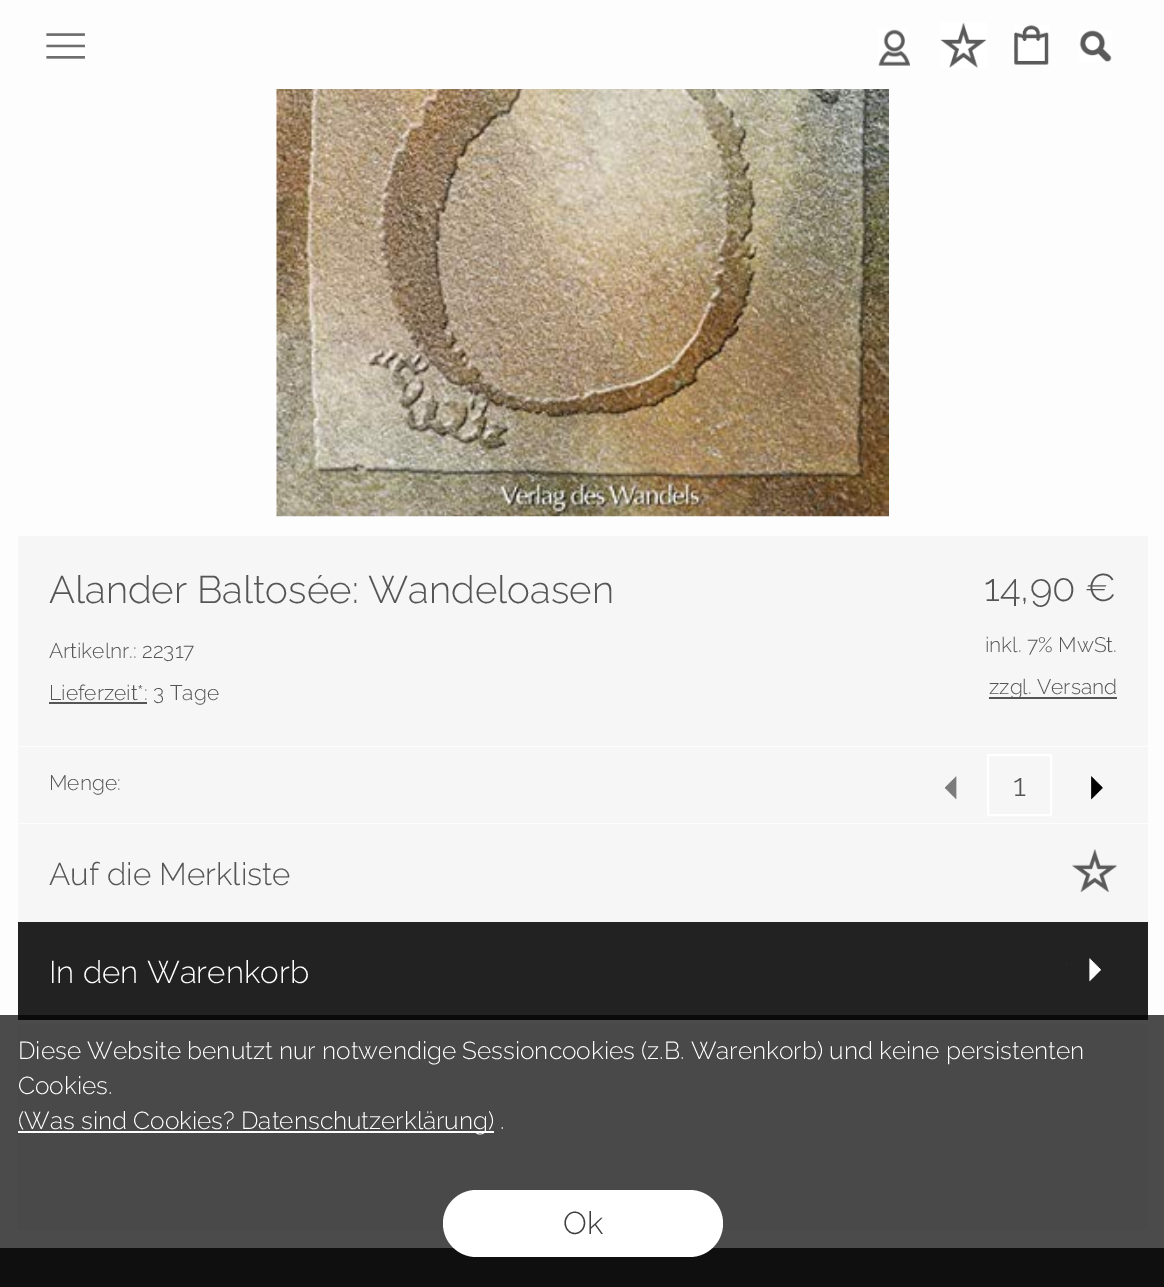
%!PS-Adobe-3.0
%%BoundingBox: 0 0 1164 1287
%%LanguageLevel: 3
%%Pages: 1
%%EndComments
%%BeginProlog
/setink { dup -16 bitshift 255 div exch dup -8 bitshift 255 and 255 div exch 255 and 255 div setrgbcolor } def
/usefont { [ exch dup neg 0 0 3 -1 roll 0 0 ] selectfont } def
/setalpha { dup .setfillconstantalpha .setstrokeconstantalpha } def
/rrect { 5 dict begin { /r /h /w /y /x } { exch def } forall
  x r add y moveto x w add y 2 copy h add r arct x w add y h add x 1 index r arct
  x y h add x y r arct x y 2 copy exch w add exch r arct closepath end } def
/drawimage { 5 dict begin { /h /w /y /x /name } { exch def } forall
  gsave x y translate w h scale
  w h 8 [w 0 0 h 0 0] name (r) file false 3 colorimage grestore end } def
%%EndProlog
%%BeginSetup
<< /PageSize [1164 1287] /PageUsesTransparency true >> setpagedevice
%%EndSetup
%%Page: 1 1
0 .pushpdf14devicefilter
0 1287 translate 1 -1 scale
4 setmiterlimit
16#FDFDFD setink
0 0 1164 1287 rectfill
(img1.raw) 46 33 39 26 drawimage
(img2.raw) 878 29 32 37 drawimage
(img3.raw) 940 22 47 46 drawimage
(img4.raw) 1014 25 35 40 drawimage
(img5.raw) 1079 30 33 32 drawimage
(img6.raw) 276 89 613 428 drawimage
16#F6F6F6 setink
18 536 1130 210 rectfill
/Raleway-Light 38.5 usefont
16#555555 setink
49 603 moveto (Alander Baltosée: Wandeloasen) show
/Raleway-Light 21 usefont
49 658 moveto (Artikelnr.: 22317) show
49 702 98 2 rectfill
49 700 moveto (Lieferzeit*: 3 Tage) show
/Raleway-Light 38.5 usefont
984 601 moveto (14,90 €) show
/Raleway-Light 21 usefont
985 652 moveto (inkl. 7% MwSt.) show
989 697 128 2 rectfill
989 694 moveto (zzgl. Versand) show
16#F6F6F6 setink
18 747 1130 76 rectfill
16#555555 setink
49 790 moveto (Menge:) show
(img7.raw) 945 776 12 24 drawimage
16#FFFFFF setink
2 setlinewidth
988 755 63 60 rectstroke
/Raleway-Light 31.5 usefont
16#555555 setink
1013 796 moveto (1) show
(img8.raw) 1091 776 12 24 drawimage
16#F6F6F6 setink
18 824 1130 98 rectfill
16#555555 setink
49 885 moveto (Auf die Merkliste) show
(img9.raw) 1072 849 45 43 drawimage
16#222222 setink
18 922 1130 98 rectfill
16#FFFFFF setink
49 983 moveto (In den Warenkorb) show
(img10.raw) 1066 958 35 24 drawimage
[
    [18 1024 1130 206 16#F6F6F6]
    [0 1248 1164 39 16#333333]
] { aload pop setink rectfill } forall
0.7 setalpha
[
    [0 1015 1164 272 16#000000]
] { aload pop setink rectfill } forall
/Raleway-Light 24.5 usefont
1 setalpha
16#FFFFFF setink
18 1059 moveto (Diese Website benutzt nur notwendige Sessioncookies \(z.B. Warenkorb\) und keine persistenten) show
18 1094 moveto (Cookies.) show
18 1131 476 2 rectfill
18 1129 moveto (\(Was sind Cookies? Datenschutzerklärung\) .) show
443 1190 280 67 33.5 rrect fill
/Raleway-Light 31.5 usefont
16#3E3E3E setink
563 1234 moveto (Ok) show
.poppdf14devicefilter showpage
%%EOF
